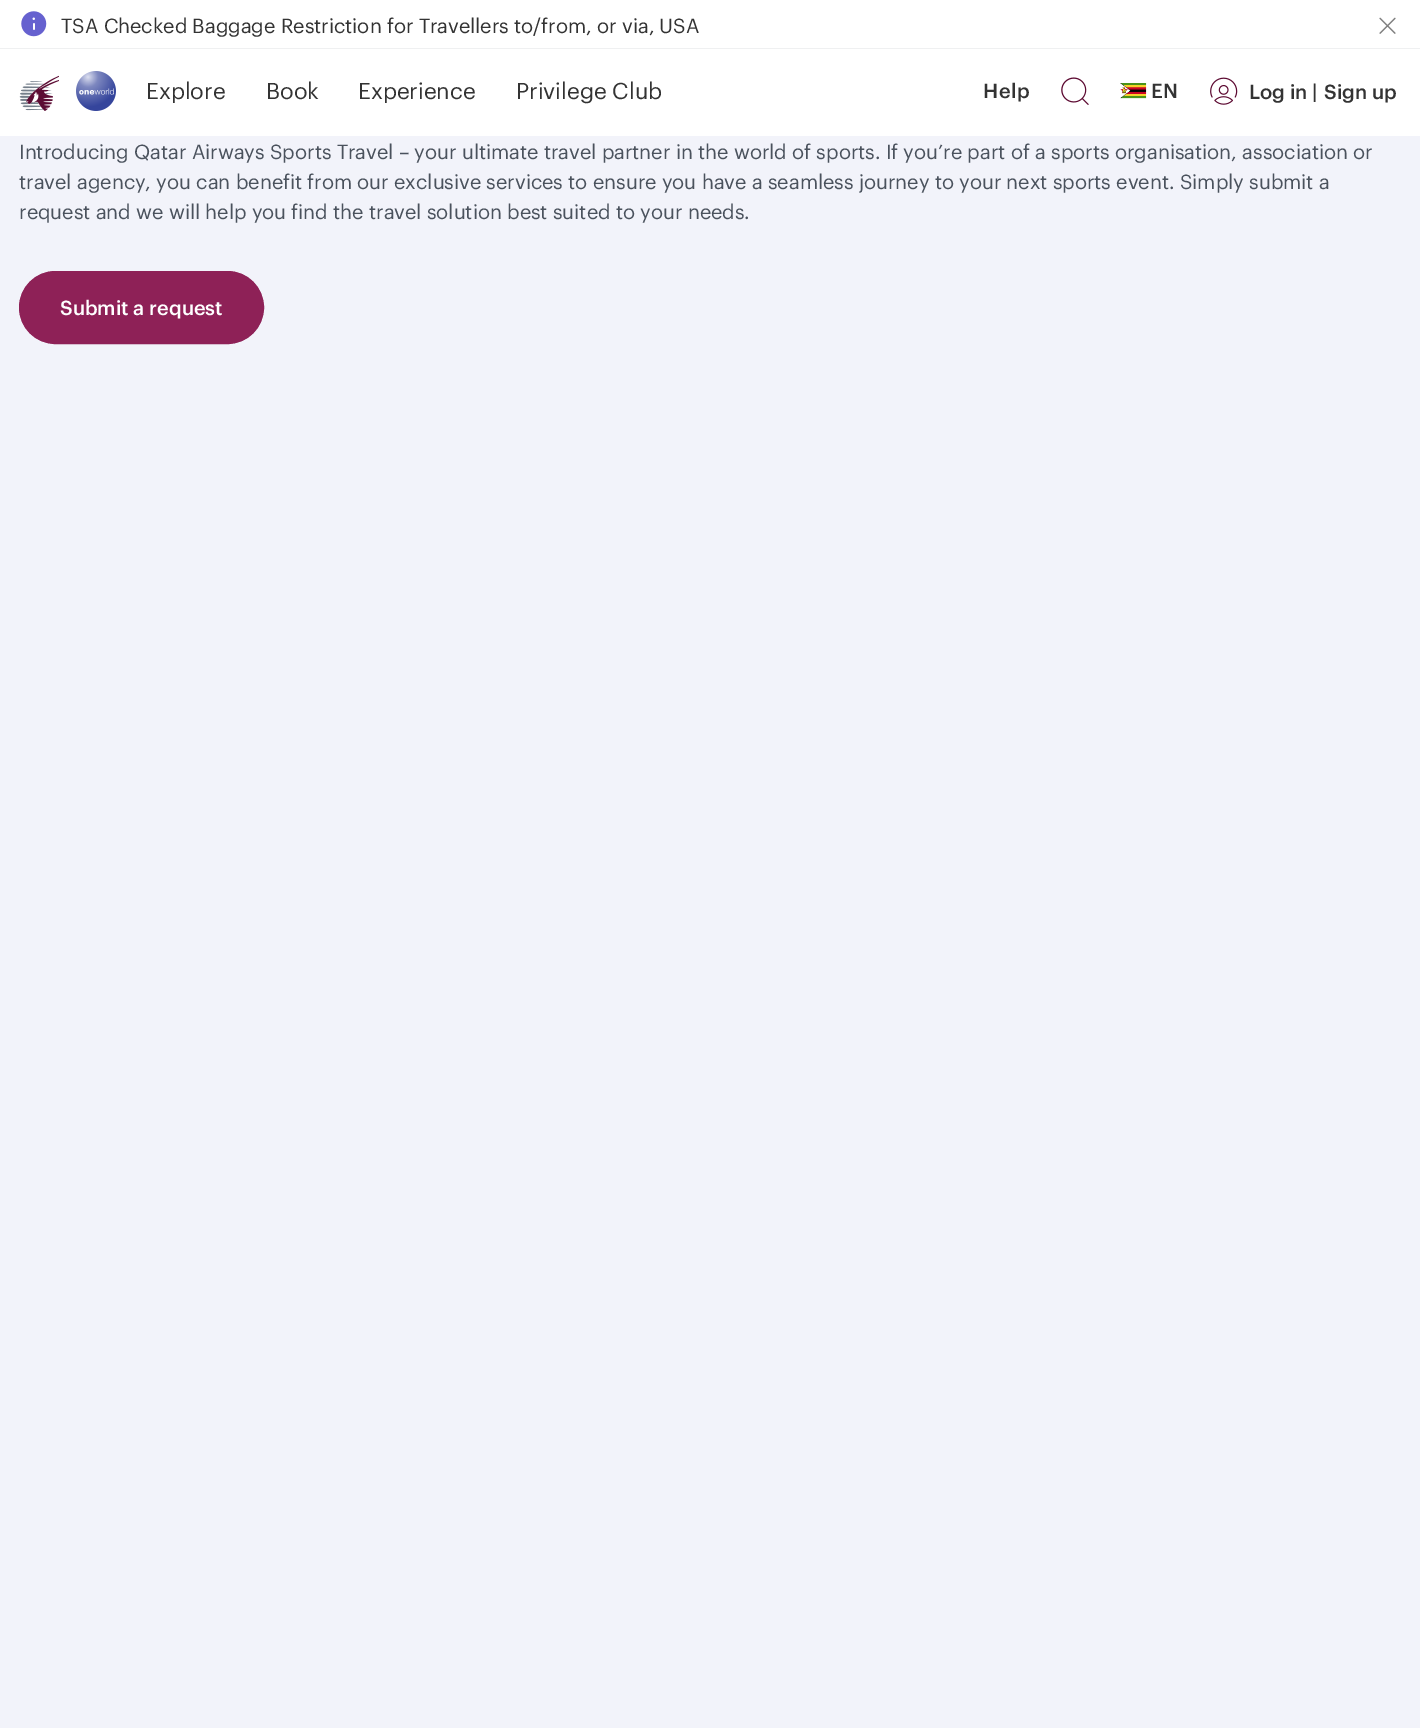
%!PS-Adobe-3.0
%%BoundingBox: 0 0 1420 1728
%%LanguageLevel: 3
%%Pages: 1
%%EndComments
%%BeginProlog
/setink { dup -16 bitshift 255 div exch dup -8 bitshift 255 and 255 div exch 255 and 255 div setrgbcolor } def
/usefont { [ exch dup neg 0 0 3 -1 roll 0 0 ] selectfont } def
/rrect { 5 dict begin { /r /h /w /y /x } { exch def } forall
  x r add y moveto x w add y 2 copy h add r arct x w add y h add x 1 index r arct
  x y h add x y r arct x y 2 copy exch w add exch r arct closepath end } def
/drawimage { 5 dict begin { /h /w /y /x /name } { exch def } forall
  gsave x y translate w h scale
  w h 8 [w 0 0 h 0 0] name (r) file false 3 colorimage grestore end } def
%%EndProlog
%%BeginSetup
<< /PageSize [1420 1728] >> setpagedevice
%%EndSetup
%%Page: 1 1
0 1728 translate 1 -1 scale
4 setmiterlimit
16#F2F3FA setink
0 0 1420 1728 rectfill
16#FFFFFF setink
0 0 1420 136 rectfill
16#EFF0F1 setink
0 48 1420 1 rectfill
(img1.raw) 21 11 26 26 drawimage
/Graphik-Regular 20 usefont
16#333333 setink
61 33 moveto (TSA Checked Baggage Restriction for Travellers to/from, or via, USA) show
(img2.raw) 1379 17 17 17 drawimage
(img3.raw) 19 75 40 36 drawimage
(img4.raw) 76 71 40 40 drawimage
/Graphik-Regular 22.5 usefont
[
    [(Explore) 146 99]
    [(Book) 266 99]
    [(Experience) 358 99]
    [(Privilege Club) 516 99]
] { aload pop moveto show } forall
/Graphik-Medium 20 usefont
983 98 moveto 0.5 0 (Help) ashow
(img5.raw) 1061 77 28 28 drawimage
(img6.raw) 1120 83 27 16 drawimage
1151 98 moveto 0.5 0 (EN) ashow
(img7.raw) 1210 77 28 28 drawimage
1249 99 moveto (Log in |) show
1324 99 moveto (Sign up) show
/Graphik-Regular 20 usefont
16#4A525D setink
[
    [(Introducing Qatar Airways Sports Travel – your ultimate travel partner in the world of sports. If you’re part of a sports organisation, association or) 19 159]
    [(travel agency, you can benefit from our exclusive services to ensure you have a seamless journey to your next sports event. Simply submit a) 19 189]
    [(request and we will help you find the travel solution best suited to your needs.) 19 219]
] { aload pop moveto show } forall
16#8E2157 setink
19.5 271.5 244 72 36 rrect gsave fill grestore
stroke
/Graphik-Medium 20 usefont
16#FFFFFF setink
60 315 moveto (Submit a request) show
showpage
%%EOF
